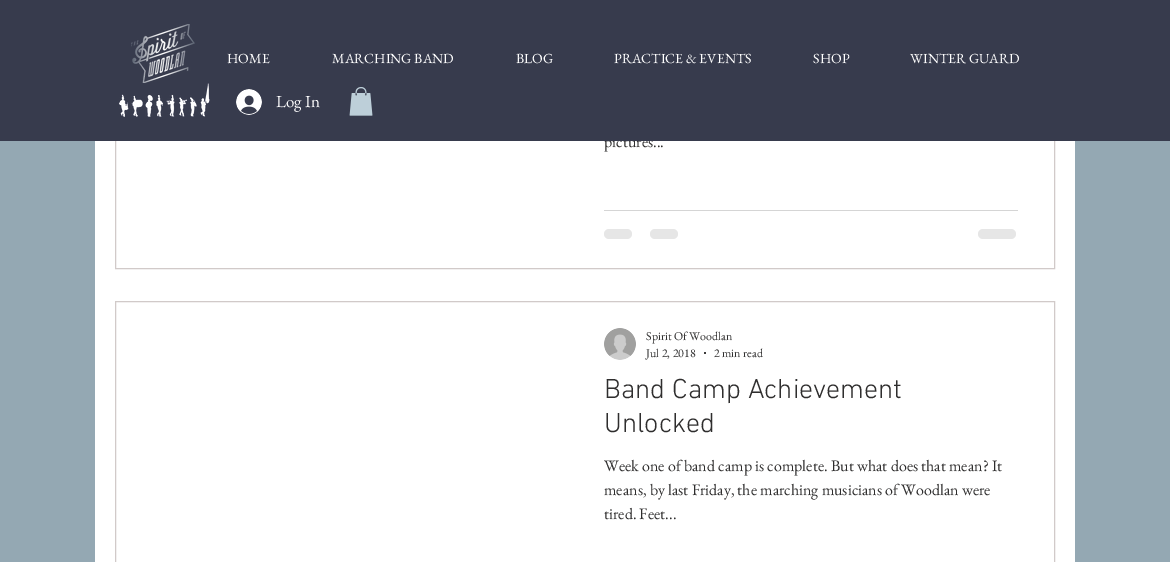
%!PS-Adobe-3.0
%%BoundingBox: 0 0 1170 562
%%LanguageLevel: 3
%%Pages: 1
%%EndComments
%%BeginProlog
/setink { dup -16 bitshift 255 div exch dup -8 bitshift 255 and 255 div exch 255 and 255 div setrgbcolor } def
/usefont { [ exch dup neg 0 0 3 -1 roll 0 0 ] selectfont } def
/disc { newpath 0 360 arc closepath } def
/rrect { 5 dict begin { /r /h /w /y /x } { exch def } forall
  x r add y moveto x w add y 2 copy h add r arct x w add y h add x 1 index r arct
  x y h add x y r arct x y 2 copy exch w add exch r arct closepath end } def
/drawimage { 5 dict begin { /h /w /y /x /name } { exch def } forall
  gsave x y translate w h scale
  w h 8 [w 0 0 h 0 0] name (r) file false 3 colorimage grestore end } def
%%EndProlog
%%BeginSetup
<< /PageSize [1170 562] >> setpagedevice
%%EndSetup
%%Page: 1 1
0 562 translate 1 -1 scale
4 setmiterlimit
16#94A8B3 setink
0 0 1170 562 rectfill
16#FFFFFF setink
95 141 980 421 rectfill
16#D1CAC9 setink
115.5 -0.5 939 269 rectstroke
/EBGaramond-Regular 16 usefont
16#2F2E2E setink
604 147 moveto (pictures...) show
16#373B4D setink
0 0 1170 141 rectfill
(img1.raw) 131 24 64 59 drawimage
/EBGaramond-Regular 14 usefont
16#FFFFFF setink
[
    [(HOME) 227 63]
    [(MARCHING BAND) 332 63]
    [(BLOG) 516 63]
    [(PRACTICE & EVENTS) 614 63]
    [(SHOP) 813 63]
    [(WINTER GUARD) 910 63]
] { aload pop moveto show } forall
(img2.raw) 119 83 91 34 drawimage
(img3.raw) 236 89 26 26 drawimage
/EBGaramond-Regular 17 usefont
276 107 moveto (Log In) show
(img4.raw) 349 87 24 29 drawimage
16#D5D5D5 setink
604 210 414 1 rectfill
16#E6E6E6 setink
604 229 28 10 5 rrect fill
650 229 28 10 5 rrect fill
978 229 38 10 5 rrect fill
16#D1CAC9 setink
115.5 301.5 939 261 rectstroke
(img5.raw) 604 328 32 32 drawimage
/EBGaramond-Regular 12 usefont
16#2F2E2E setink
646 340 moveto (Spirit Of Woodlan) show
646 357 moveto (Jul 2, 2018) show
705 353 1 disc fill
714 357 moveto (2 min read) show
/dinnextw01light-Light 28 usefont
604 398 moveto (Band Camp Achievement) show
604 432 moveto (Unlocked) show
/EBGaramond-Regular 16 usefont
[
    [(Week one of band camp is complete. But what does that mean? It) 604 471]
    [(means, by last Friday, the marching musicians of Woodlan were) 604 495]
    [(tired. Feet...) 604 519]
] { aload pop moveto show } forall
showpage
%%EOF
